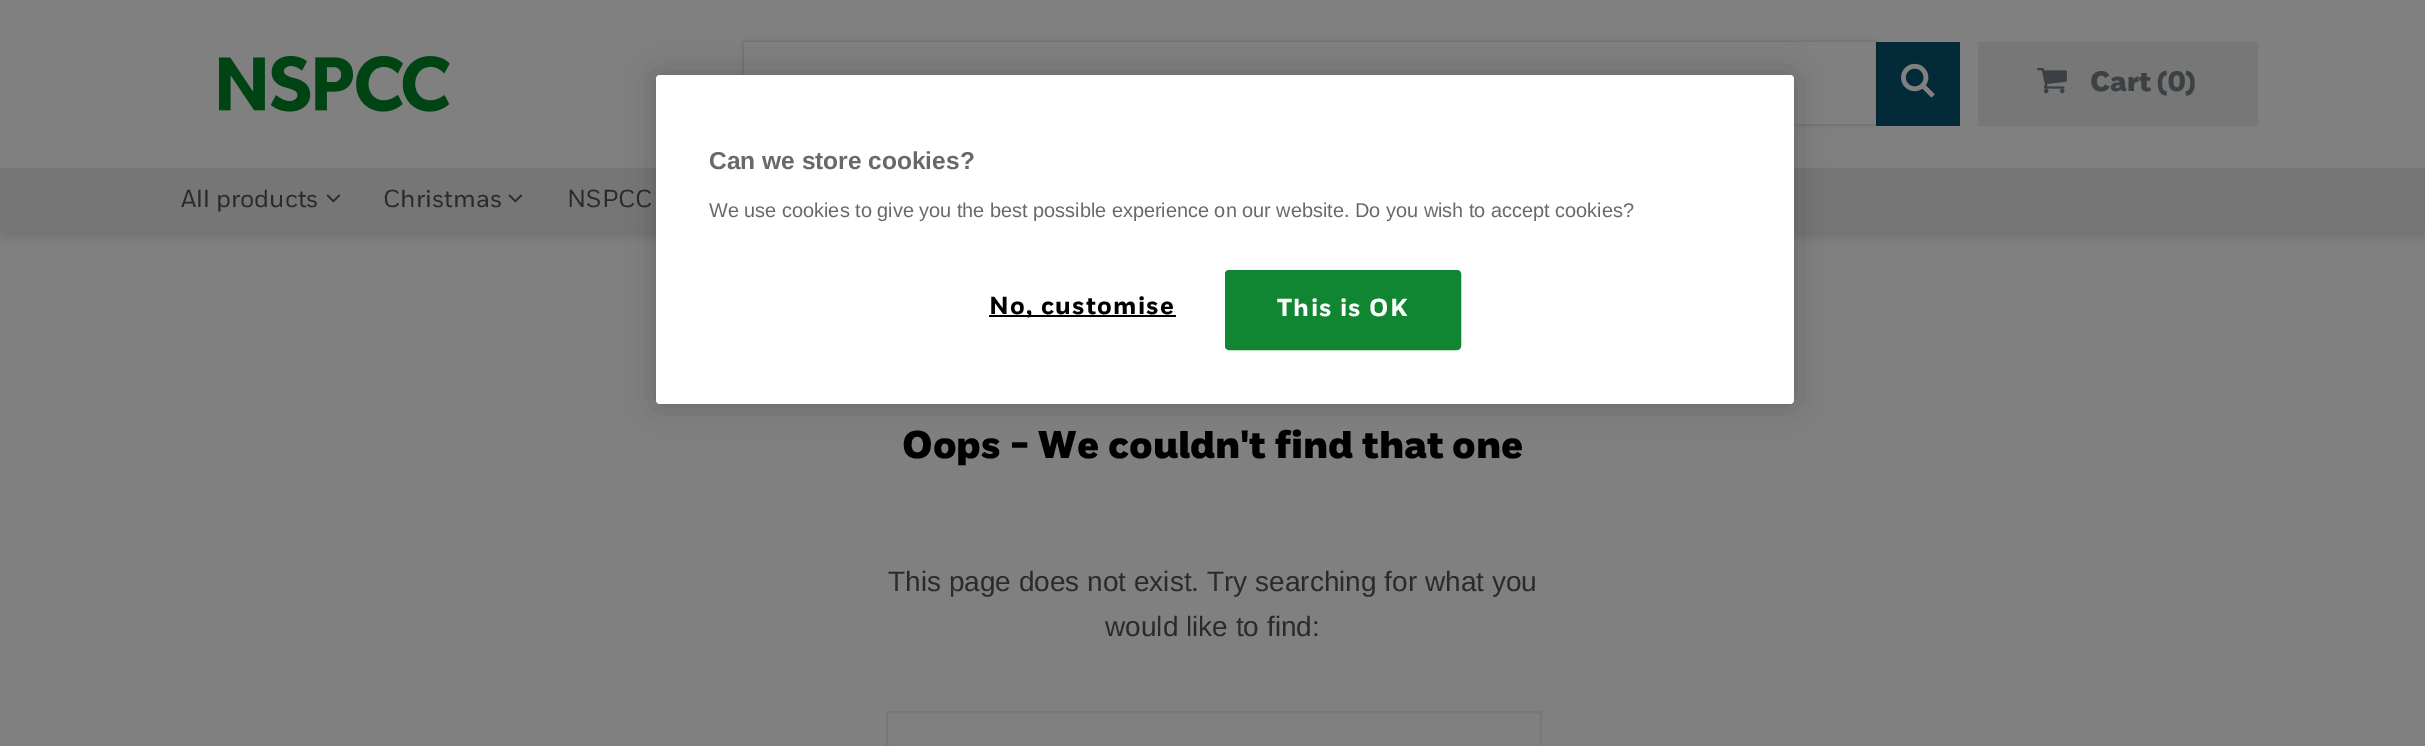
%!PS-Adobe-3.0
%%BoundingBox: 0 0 2425 746
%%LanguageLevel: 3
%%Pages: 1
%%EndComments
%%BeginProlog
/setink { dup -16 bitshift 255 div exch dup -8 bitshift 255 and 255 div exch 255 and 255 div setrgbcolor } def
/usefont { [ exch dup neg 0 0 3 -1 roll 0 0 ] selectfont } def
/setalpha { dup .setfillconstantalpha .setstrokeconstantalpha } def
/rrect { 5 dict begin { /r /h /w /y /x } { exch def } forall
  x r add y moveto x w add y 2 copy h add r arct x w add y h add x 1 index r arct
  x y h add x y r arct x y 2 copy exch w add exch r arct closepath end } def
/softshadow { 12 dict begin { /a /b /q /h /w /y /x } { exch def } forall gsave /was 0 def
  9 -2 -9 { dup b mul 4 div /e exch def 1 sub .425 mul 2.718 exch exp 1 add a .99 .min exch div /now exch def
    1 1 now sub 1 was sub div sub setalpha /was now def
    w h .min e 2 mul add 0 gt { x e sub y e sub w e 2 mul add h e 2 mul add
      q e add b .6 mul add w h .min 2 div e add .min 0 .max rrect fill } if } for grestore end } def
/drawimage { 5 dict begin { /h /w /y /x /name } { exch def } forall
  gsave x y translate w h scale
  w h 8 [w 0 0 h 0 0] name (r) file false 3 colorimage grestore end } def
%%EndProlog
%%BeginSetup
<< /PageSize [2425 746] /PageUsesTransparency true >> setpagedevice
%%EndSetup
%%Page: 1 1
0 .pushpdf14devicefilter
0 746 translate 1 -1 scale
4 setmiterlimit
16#808080 setink
0 0 2425 746 rectfill
(img1.raw) 219 56 231 56 drawimage
16#022A38 setink
1876 42 84 84 rectfill
gsave
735 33 moveto 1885 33 lineto 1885 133 lineto 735 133 lineto closepath 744 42 moveto 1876 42 lineto 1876 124 lineto 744 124 lineto closepath eoclip newpath
16#000000 setink
744 42 1132 82 0 2.5 0.2 softshadow
grestore
(img2.raw) 1901 63 34 35 drawimage
16#777777 setink
1978 42 280 84 rectfill
(img3.raw) 2037 68 30 26 drawimage
/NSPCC-ExtraBold 28 usefont
16#3C4144 setink
2090 91 moveto (Cart \(0\)) show
16#000000 setink
0 175 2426 63 0 3.5 0.1 softshadow
16#767676 setink
0 168 2425 63 rectfill
/NSPCC-Regular 24.5 usefont
16#292A2B setink
181 207 moveto (All products) show
(img4.raw) 326 194 15 9 drawimage
383 207 moveto (Christmas) show
(img4.raw) 508 194 15 9 drawimage
567 207 moveto (NSPCC) show
/NSPCC-ExtraBold 38.5 usefont
16#000000 setink
902 458 moveto (Oops - We couldn't find that one) show
/LiberationSans-Regular 28 usefont
16#292A2B setink
888 591 moveto (This page does not exist. Try searching for what you) show
1105 636 moveto (would like to find:) show
16#777777 setink
2 setlinewidth
887 712 654 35 rectstroke
16#000000 setink
656 75 1138 329 4 16 0.2 softshadow
16#FFFFFF setink
656 75 1138 329 4 rrect fill
/LiberationSans-Bold 24.5 usefont
16#696969 setink
709 169 moveto (Can we store cookies?) show
/LiberationSans-Regular 19.9 usefont
709 217 moveto (We use cookies to give you the best possible experience on our website.) show
1355 217 moveto (Do you wish to accept cookies?) show
16#000000 setink
989 315 187 2 rectfill
/NSPCC-Bold 24.5 usefont
989 314 moveto 1.25 0 (No, customise) ashow
16#108633 setink
1226 271 234 78 3 rrect gsave fill grestore
stroke
16#FFFFFF setink
1277 316 moveto 1.25 0 (This is OK) ashow
.poppdf14devicefilter showpage
%%EOF
